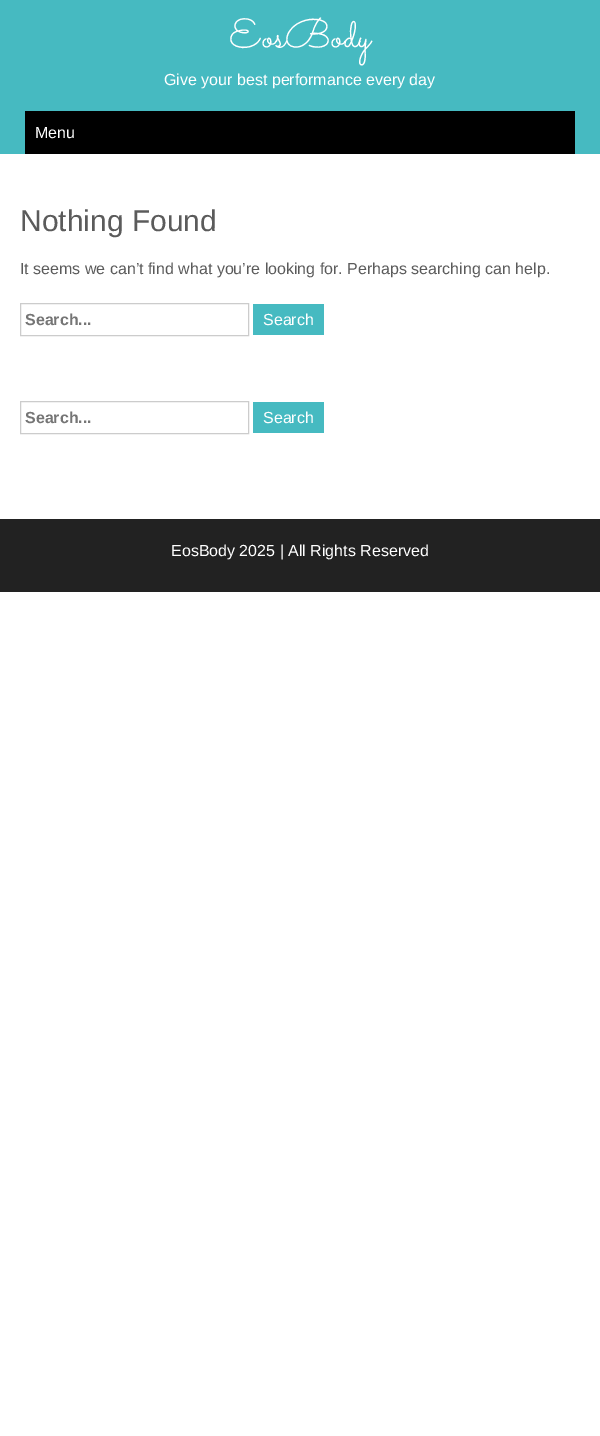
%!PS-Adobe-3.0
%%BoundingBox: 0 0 600 1436
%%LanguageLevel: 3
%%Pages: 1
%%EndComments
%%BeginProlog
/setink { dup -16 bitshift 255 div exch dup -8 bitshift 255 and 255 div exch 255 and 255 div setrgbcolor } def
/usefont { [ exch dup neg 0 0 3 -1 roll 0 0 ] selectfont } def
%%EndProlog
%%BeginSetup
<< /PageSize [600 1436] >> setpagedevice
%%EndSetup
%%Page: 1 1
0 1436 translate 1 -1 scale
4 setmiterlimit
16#FFFFFF setink
0 0 600 1436 rectfill
16#46BAC1 setink
0 0 600 154 rectfill
/Sacramento-Regular 40 usefont
16#FFFFFF setink
229 47 moveto (EosBody) show
/LiberationSans-Regular 16 usefont
164 85 moveto (Give your best performance every day) show
16#000000 setink
25 111 550 43 rectfill
16#FFFFFF setink
35 138 moveto (Menu) show
/LiberationSans-Regular 30 usefont
16#5B5B5B setink
20 231 moveto (Nothing Found) show
/LiberationSans-Regular 16 usefont
20 274 moveto (It seems we can’t find what you’re looking for. Perhaps searching can help.) show
16#CCCCCC setink
20.5 303.5 228 32 rectstroke
/LiberationSans-Bold 16 usefont
16#757575 setink
25 325 moveto (Search...) show
16#46BAC1 setink
253 304 71 31 rectfill
/LiberationSans-Regular 16 usefont
16#FFFFFF setink
263 325 moveto (Search) show
16#CCCCCC setink
20.5 401.5 228 32 rectstroke
/LiberationSans-Bold 16 usefont
16#757575 setink
25 423 moveto (Search...) show
16#46BAC1 setink
253 402 71 31 rectfill
/LiberationSans-Regular 16 usefont
16#FFFFFF setink
263 423 moveto (Search) show
16#222222 setink
0 519 600 73 rectfill
16#FFFFFF setink
171 556 moveto (EosBody 2025 | All Rights Reserved) show
showpage
%%EOF
